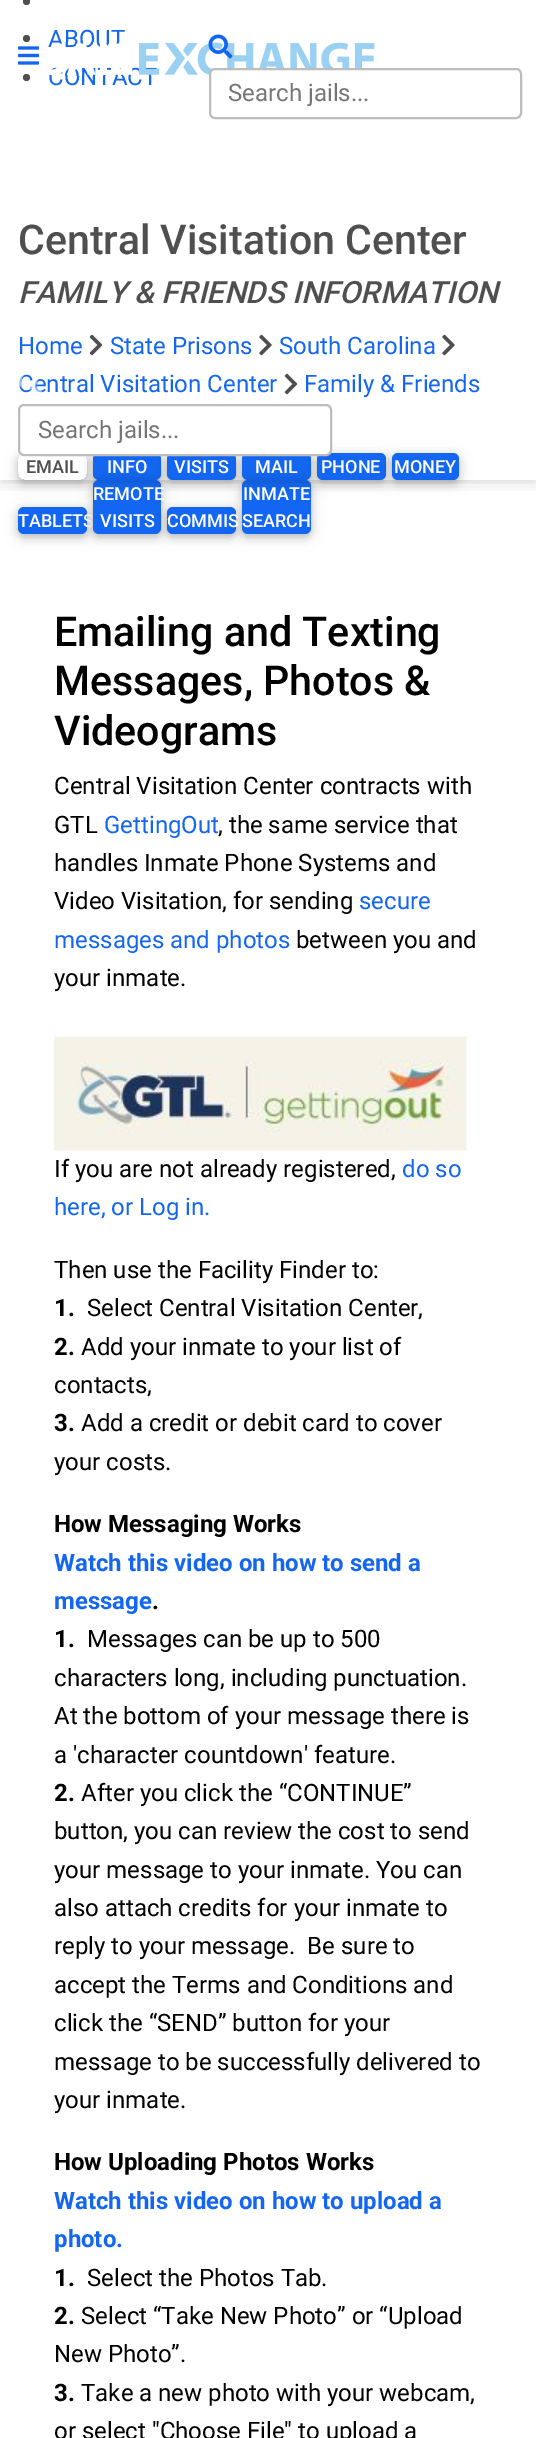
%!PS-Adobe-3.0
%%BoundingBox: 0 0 536 2438
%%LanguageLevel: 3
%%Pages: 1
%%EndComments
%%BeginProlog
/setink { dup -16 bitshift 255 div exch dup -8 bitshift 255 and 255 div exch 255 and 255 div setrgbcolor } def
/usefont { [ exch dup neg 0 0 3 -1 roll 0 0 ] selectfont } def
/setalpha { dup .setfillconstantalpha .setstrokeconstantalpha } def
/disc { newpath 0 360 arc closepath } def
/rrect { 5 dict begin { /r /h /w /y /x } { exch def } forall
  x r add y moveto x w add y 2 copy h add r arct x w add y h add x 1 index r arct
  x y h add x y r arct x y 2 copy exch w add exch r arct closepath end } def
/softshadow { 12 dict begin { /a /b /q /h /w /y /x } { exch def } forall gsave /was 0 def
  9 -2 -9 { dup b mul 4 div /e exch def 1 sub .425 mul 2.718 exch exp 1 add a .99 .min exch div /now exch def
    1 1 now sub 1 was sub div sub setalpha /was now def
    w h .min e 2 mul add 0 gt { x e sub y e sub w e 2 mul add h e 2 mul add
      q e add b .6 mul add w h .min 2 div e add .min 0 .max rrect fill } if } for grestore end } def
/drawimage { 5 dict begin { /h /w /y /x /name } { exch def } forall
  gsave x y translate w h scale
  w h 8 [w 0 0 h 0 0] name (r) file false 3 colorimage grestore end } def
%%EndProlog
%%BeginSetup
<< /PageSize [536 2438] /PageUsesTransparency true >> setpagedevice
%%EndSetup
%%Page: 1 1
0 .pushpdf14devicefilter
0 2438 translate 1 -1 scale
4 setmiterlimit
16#FFFFFF setink
0 0 536 2438 rectfill
16#4F4F4F setink
23 -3 7 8 3.5 rrect fill
26.5 38.5 3.5 disc fill
/Roboto-Regular 24 usefont
16#1266F1 setink
48 47 moveto (ABOUT) show
16#4F4F4F setink
26.5 77.5 3.5 disc fill
16#1266F1 setink
48 85 moveto (CONTACT) show
(img5.raw) 89 334 14 22 drawimage
(img6.raw) 259 334 13 22 drawimage
(img6.raw) 442 334 13 22 drawimage
(img5.raw) 284 373 14 22 drawimage
gsave
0 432 moveto 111 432 lineto 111 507 lineto 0 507 lineto closepath 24 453 moveto 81 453 lineto 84.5 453 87 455.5 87 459 curveto 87 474 lineto 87 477.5 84.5 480 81 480 curveto 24 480 lineto 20.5 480 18 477.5 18 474 curveto 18 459 lineto 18 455.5 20.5 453 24 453 curveto closepath eoclip newpath
16#000000 setink
18 456 69 27 6 7.5 0.1 softshadow
grestore
gsave
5 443 moveto 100 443 lineto 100 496 lineto 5 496 lineto closepath 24 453 moveto 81 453 lineto 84.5 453 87 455.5 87 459 curveto 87 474 lineto 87 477.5 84.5 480 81 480 curveto 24 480 lineto 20.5 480 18 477.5 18 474 curveto 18 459 lineto 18 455.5 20.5 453 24 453 curveto closepath eoclip newpath
16#000000 setink
18 456 69 27 6 4 0.2 softshadow
grestore
16#000000 setink
93 456 68 27 6 7.5 0.1 softshadow
93 456 68 27 6 4 0.2 softshadow
16#1266F1 setink
93 453 68 27 6 rrect fill
16#000000 setink
167 456 69 27 6 7.5 0.1 softshadow
167 456 69 27 6 4 0.2 softshadow
16#1266F1 setink
167 453 69 27 6 rrect fill
16#000000 setink
242 456 69 27 6 7.5 0.1 softshadow
242 456 69 27 6 4 0.2 softshadow
16#1266F1 setink
242 453 69 27 6 rrect fill
16#000000 setink
317 456 69 27 6 7.5 0.1 softshadow
317 456 69 27 6 4 0.2 softshadow
16#1266F1 setink
317 453 69 27 6 rrect fill
16#000000 setink
392 456 67 27 6 7.5 0.1 softshadow
392 456 67 27 6 4 0.2 softshadow
16#1266F1 setink
392 453 67 27 6 rrect fill
16#000000 setink
18 510 69 27 6 7.5 0.1 softshadow
18 510 69 27 6 4 0.2 softshadow
16#1266F1 setink
18 507 69 27 6 rrect fill
/Roboto-Medium 18 usefont
16#FFFFFF setink
18 527 moveto (TABLETS) show
16#000000 setink
93 483 68 54 6 7.5 0.1 softshadow
93 483 68 54 6 4 0.2 softshadow
16#1266F1 setink
93 480 68 54 6 rrect fill
16#000000 setink
167 510 69 27 6 7.5 0.1 softshadow
167 510 69 27 6 4 0.2 softshadow
16#1266F1 setink
167 507 69 27 6 rrect fill
16#000000 setink
242 483 69 54 6 7.5 0.1 softshadow
242 483 69 54 6 4 0.2 softshadow
16#1266F1 setink
242 480 69 54 6 rrect fill
gsave
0 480 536 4 rectclip
16#000000 setink
0 3 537 480 0 3 0.05 softshadow
grestore
gsave
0 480 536 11 rectclip
16#000000 setink
0 6 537 480 0 9 0.07 softshadow
grestore
(img1.raw) 18 46 21 19 drawimage
(img2.raw) 49 42 326 34 drawimage
(img3.raw) 208 34 25 25 drawimage
16#FFFFFF setink
210 69 311 49 5 rrect gsave fill grestore
16#BDBDBD setink
2 setlinewidth
stroke
/Roboto-Regular 24 usefont
16#757575 setink
228 101 moveto (Search jails...) show
16#1266F1 setink
18 392 moveto (Central Visitation Center) show
(img4.raw) 19 374 23 19 drawimage
16#FFFFFF setink
19 405 312 50 5 rrect gsave fill grestore
16#BDBDBD setink
stroke
16#757575 setink
38 438 moveto (Search jails...) show
/Roboto-Medium 41 usefont
16#4F4F4F setink
18 254 moveto (Central Visitation Center) show
/Roboto-MediumItalic 30.75 usefont
18 303 moveto (FAMILY & FRIENDS INFORMATION) show
/Roboto-Regular 24 usefont
16#1266F1 setink
[
    [(Home) 18 354]
    [(State Prisons) 110 354]
    [(South Carolina) 279 354]
    [(Family & Friends) 304 392]
] { aload pop moveto show } forall
/Roboto-Medium 18 usefont
16#4F4F4F setink
26 473 moveto (EMAIL) show
16#FFFFFF setink
[
    [(INFO) 107 473]
    [(VISITS) 174 473]
    [(MAIL) 255 473]
    [(PHONE) 321 473]
    [(MONEY) 394 473]
    [(REMOTE) 93 500]
    [(VISITS) 100 527]
    [(COMMIS) 167 527]
    [(INMATE) 243 500]
    [(SEARCH) 242 527]
] { aload pop moveto show } forall
/Roboto-Medium 41.25 usefont
16#000000 setink
[
    [(Emailing and Texting) 54 646]
    [(Messages, Photos &) 54 695]
    [(Videograms) 54 745]
] { aload pop moveto show } forall
/Roboto-Regular 24 usefont
54 794 moveto (Central Visitation Center contracts with) show
54 833 moveto (GTL) show
16#1266F1 setink
104 833 moveto (GettingOut) show
16#000000 setink
[
    [(, the same service that) 218 833]
    [(handles Inmate Phone Systems and) 54 871]
    [(Video Visitation, for sending) 54 909]
] { aload pop moveto show } forall
16#1266F1 setink
359 909 moveto (secure) show
54 948 moveto (messages and photos) show
16#000000 setink
296 948 moveto (between you and) show
54 986 moveto (your inmate.) show
(img7.raw) 54 1036 413 115 drawimage
54 1177 moveto (If you are not already registered,) show
16#1266F1 setink
402 1177 moveto (do so) show
54 1215 moveto (here, or Log in.) show
16#000000 setink
54 1278 moveto (Then use the Facility Finder to:) show
/Roboto-Bold 24 usefont
54 1316 moveto (1.) show
/Roboto-Regular 24 usefont
87 1316 moveto (Select Central Visitation Center,) show
/Roboto-Bold 24 usefont
54 1355 moveto (2.) show
/Roboto-Regular 24 usefont
81 1355 moveto (Add your inmate to your list of) show
54 1393 moveto (contacts,) show
/Roboto-Bold 24 usefont
54 1431 moveto (3.) show
/Roboto-Regular 24 usefont
81 1431 moveto (Add a credit or debit card to cover) show
54 1470 moveto (your costs.) show
/Roboto-Bold 24 usefont
54 1532 moveto (How Messaging Works) show
16#1266F1 setink
54 1571 moveto (Watch this video on how to send a) show
54 1609 moveto (message) show
16#000000 setink
152 1609 moveto (.) show
54 1647 moveto (1.) show
/Roboto-Regular 24 usefont
[
    [(Messages can be up to 500) 87 1647]
    [(characters long, including punctuation.) 54 1686]
    [(At the bottom of your message there is) 54 1724]
    [(a 'character countdown' feature.) 54 1763]
] { aload pop moveto show } forall
/Roboto-Bold 24 usefont
54 1801 moveto (2.) show
/Roboto-Regular 24 usefont
[
    [(After you click the “CONTINUE”) 81 1801]
    [(button, you can review the cost to send) 54 1839]
    [(your message to your inmate. You can) 54 1878]
    [(also attach credits for your inmate to) 54 1916]
    [(reply to your message.  Be sure to) 54 1954]
    [(accept the Terms and Conditions and) 54 1993]
    [(click the “SEND” button for your) 54 2031]
    [(message to be successfully delivered to) 54 2070]
    [(your inmate.) 54 2108]
] { aload pop moveto show } forall
/Roboto-Bold 24 usefont
54 2170 moveto (How Uploading Photos Works) show
16#1266F1 setink
54 2209 moveto (Watch this video on how to upload a) show
54 2247 moveto (photo.) show
16#000000 setink
54 2286 moveto (1.) show
/Roboto-Regular 24 usefont
87 2286 moveto (Select the Photos Tab.) show
/Roboto-Bold 24 usefont
54 2324 moveto (2.) show
/Roboto-Regular 24 usefont
81 2324 moveto (Select “Take New Photo” or “Upload) show
54 2362 moveto (New Photo”.) show
/Roboto-Bold 24 usefont
54 2401 moveto (3.) show
/Roboto-Regular 24 usefont
81 2401 moveto (Take a new photo with your webcam,) show
54 2439 moveto (or select "Choose File" to upload a) show
.poppdf14devicefilter showpage
%%EOF
